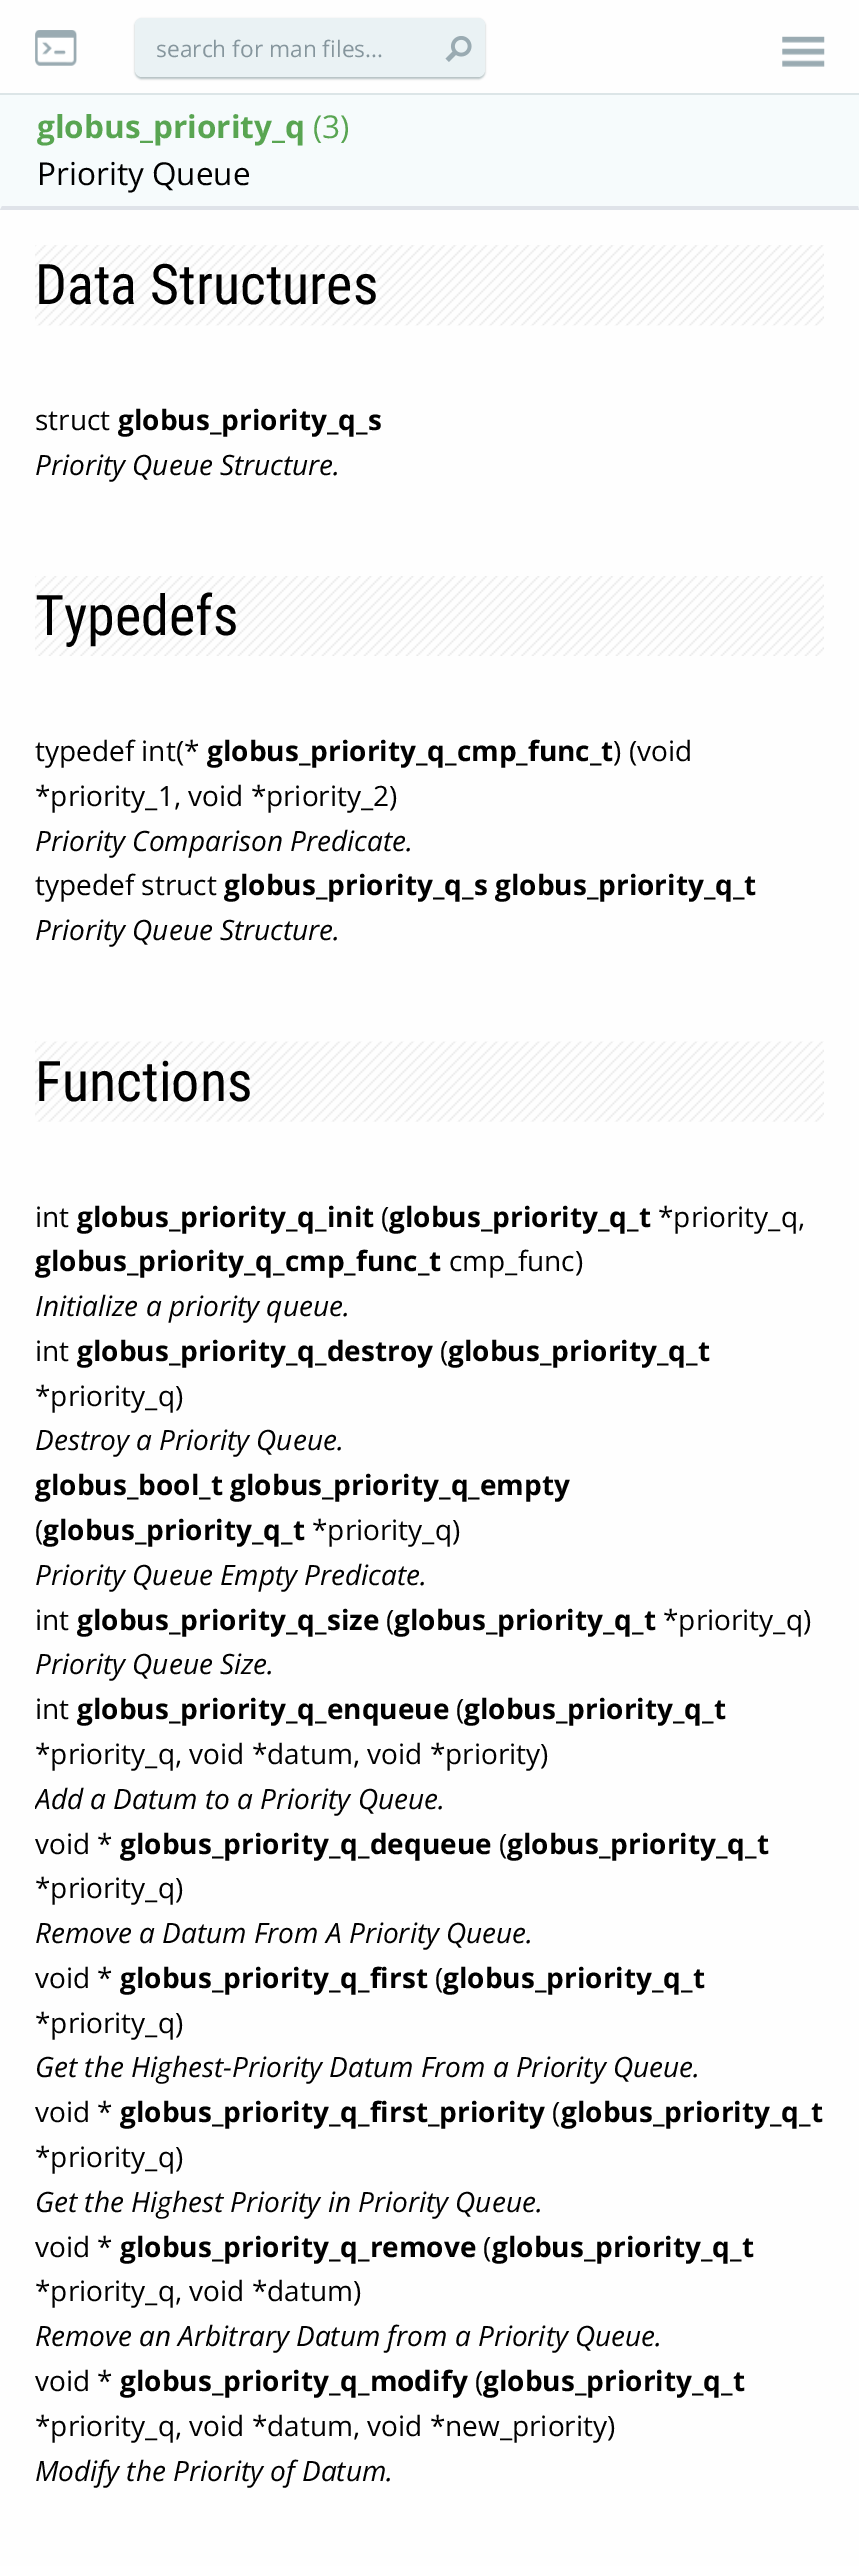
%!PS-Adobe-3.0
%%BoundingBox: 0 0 859 2566
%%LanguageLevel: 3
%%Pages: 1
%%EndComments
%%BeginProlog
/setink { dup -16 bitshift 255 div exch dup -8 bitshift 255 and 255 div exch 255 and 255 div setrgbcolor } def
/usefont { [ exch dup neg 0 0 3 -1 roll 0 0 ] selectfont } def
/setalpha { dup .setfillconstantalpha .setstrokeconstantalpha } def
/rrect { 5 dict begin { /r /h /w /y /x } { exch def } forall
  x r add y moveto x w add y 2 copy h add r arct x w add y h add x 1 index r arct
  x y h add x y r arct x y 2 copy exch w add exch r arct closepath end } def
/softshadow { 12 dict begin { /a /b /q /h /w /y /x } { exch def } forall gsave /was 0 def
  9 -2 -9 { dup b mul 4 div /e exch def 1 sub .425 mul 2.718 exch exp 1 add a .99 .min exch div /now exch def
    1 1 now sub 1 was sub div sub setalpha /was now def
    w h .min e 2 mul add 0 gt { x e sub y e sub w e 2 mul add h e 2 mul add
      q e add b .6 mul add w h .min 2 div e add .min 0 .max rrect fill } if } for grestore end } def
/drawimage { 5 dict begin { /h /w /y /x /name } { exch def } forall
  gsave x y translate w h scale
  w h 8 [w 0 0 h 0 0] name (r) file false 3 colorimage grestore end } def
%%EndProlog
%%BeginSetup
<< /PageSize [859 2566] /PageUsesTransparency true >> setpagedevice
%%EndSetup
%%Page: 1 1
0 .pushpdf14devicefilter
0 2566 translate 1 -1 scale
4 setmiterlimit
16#FEFEFE setink
0 0 859 2566 rectfill
16#DCE5E7 setink
0 93 859 2 rectfill
(img1.raw) 35 30 42 36 drawimage
16#062F37 setink
135 19 350 60 7 1 0.3 softshadow
16#EAF2F4 setink
135 18 350 59 7 rrect fill
/OpenSans-Regular 22.75 usefont
16#86969D setink
156 57 moveto (search for man files...) show
(img2.raw) 445 36 27 26 drawimage
(img3.raw) 782 36 43 31 drawimage
16#F6FBFC setink
0 95 859 115 rectfill
16#DFE3E9 setink
859 210 moveto 0 210 lineto 2 206 lineto 858 206 lineto closepath fill
/OpenSans-Bold 31.5 usefont
16#59A552 setink
37 138 moveto (globus_priority_q) show
/OpenSans-Regular 31.5 usefont
313 138 moveto (\(3\)) show
16#000000 setink
37 185 moveto (Priority Queue) show
(img4.raw) 35 245 789 81 drawimage
/RobotoCondensed-Regular 56 usefont
35 304 moveto (Data Structures) show
/OpenSans-Regular 28 usefont
35 430 moveto (struct) show
/OpenSans-Bold 28 usefont
118 430 moveto (globus_priority_q_s) show
/OpenSans-Italic 28 usefont
35 475 moveto (Priority Queue Structure.) show
(img5.raw) 35 576 789 80 drawimage
/RobotoCondensed-Regular 56 usefont
35 635 moveto (Typedefs) show
/OpenSans-Regular 28 usefont
35 761 moveto (typedef int\(*) show
/OpenSans-Bold 28 usefont
207 761 moveto (globus_priority_q_cmp_func_t) show
/OpenSans-Regular 28 usefont
613 761 moveto (\) \(void) show
35 806 moveto (*priority_1, void *priority_2\)) show
/OpenSans-Italic 28 usefont
35 851 moveto (Priority Comparison Predicate.) show
/OpenSans-Regular 28 usefont
35 895 moveto (typedef struct) show
/OpenSans-Bold 28 usefont
224 895 moveto (globus_priority_q_s globus_priority_q_t) show
/OpenSans-Italic 28 usefont
35 940 moveto (Priority Queue Structure.) show
(img6.raw) 35 1041 789 81 drawimage
/RobotoCondensed-Regular 56 usefont
35 1101 moveto (Functions) show
/OpenSans-Regular 28 usefont
35 1227 moveto (int) show
/OpenSans-Bold 28 usefont
77 1227 moveto (globus_priority_q_init) show
/OpenSans-Regular 28 usefont
381 1227 moveto (\() show
/OpenSans-Bold 28 usefont
389 1227 moveto (globus_priority_q_t) show
/OpenSans-Regular 28 usefont
658 1227 moveto (*priority_q,) show
/OpenSans-Bold 28 usefont
35 1271 moveto (globus_priority_q_cmp_func_t) show
/OpenSans-Regular 28 usefont
449 1271 moveto (cmp_func\)) show
/OpenSans-Italic 28 usefont
35 1316 moveto (Initialize a priority queue.) show
/OpenSans-Regular 28 usefont
35 1361 moveto (int) show
/OpenSans-Bold 28 usefont
77 1361 moveto (globus_priority_q_destroy) show
/OpenSans-Regular 28 usefont
440 1361 moveto (\() show
/OpenSans-Bold 28 usefont
448 1361 moveto (globus_priority_q_t) show
/OpenSans-Regular 28 usefont
35 1406 moveto (*priority_q\)) show
/OpenSans-Italic 28 usefont
35 1450 moveto (Destroy a Priority Queue.) show
/OpenSans-Bold 28 usefont
35 1495 moveto (globus_bool_t globus_priority_q_empty) show
/OpenSans-Regular 28 usefont
35 1540 moveto (\() show
/OpenSans-Bold 28 usefont
43 1540 moveto (globus_priority_q_t) show
/OpenSans-Regular 28 usefont
312 1540 moveto (*priority_q\)) show
/OpenSans-Italic 28 usefont
35 1585 moveto (Priority Queue Empty Predicate.) show
/OpenSans-Regular 28 usefont
35 1630 moveto (int) show
/OpenSans-Bold 28 usefont
77 1630 moveto (globus_priority_q_size) show
/OpenSans-Regular 28 usefont
386 1630 moveto (\() show
/OpenSans-Bold 28 usefont
394 1630 moveto (globus_priority_q_t) show
/OpenSans-Regular 28 usefont
663 1630 moveto (*priority_q\)) show
/OpenSans-Italic 28 usefont
35 1674 moveto (Priority Queue Size.) show
/OpenSans-Regular 28 usefont
35 1719 moveto (int) show
/OpenSans-Bold 28 usefont
77 1719 moveto (globus_priority_q_enqueue) show
/OpenSans-Regular 28 usefont
456 1719 moveto (\() show
/OpenSans-Bold 28 usefont
464 1719 moveto (globus_priority_q_t) show
/OpenSans-Regular 28 usefont
35 1764 moveto (*priority_q, void *datum, void *priority\)) show
gsave
35 1041 789 1488 rectclip
/OpenSans-Italic 28 usefont
35 1809 moveto (Add a Datum to a Priority Queue.) show
grestore
35 1854 moveto (void *) show
/OpenSans-Bold 28 usefont
120 1854 moveto (globus_priority_q_dequeue) show
/OpenSans-Regular 28 usefont
499 1854 moveto (\() show
/OpenSans-Bold 28 usefont
507 1854 moveto (globus_priority_q_t) show
/OpenSans-Regular 28 usefont
35 1898 moveto (*priority_q\)) show
/OpenSans-Italic 28 usefont
35 1943 moveto (Remove a Datum From A Priority Queue.) show
/OpenSans-Regular 28 usefont
35 1988 moveto (void *) show
/OpenSans-Bold 28 usefont
120 1988 moveto (globus_priority_q_first) show
/OpenSans-Regular 28 usefont
435 1988 moveto (\() show
/OpenSans-Bold 28 usefont
443 1988 moveto (globus_priority_q_t) show
/OpenSans-Regular 28 usefont
35 2033 moveto (*priority_q\)) show
/OpenSans-Italic 28 usefont
35 2077 moveto (Get the Highest-Priority Datum From a Priority Queue.) show
/OpenSans-Regular 28 usefont
35 2122 moveto (void *) show
/OpenSans-Bold 28 usefont
120 2122 moveto (globus_priority_q_first_priority) show
/OpenSans-Regular 28 usefont
552 2122 moveto (\() show
/OpenSans-Bold 28 usefont
561 2122 moveto (globus_priority_q_t) show
/OpenSans-Regular 28 usefont
35 2167 moveto (*priority_q\)) show
/OpenSans-Italic 28 usefont
35 2212 moveto (Get the Highest Priority in Priority Queue.) show
/OpenSans-Regular 28 usefont
35 2257 moveto (void *) show
/OpenSans-Bold 28 usefont
120 2257 moveto (globus_priority_q_remove) show
/OpenSans-Regular 28 usefont
483 2257 moveto (\() show
/OpenSans-Bold 28 usefont
492 2257 moveto (globus_priority_q_t) show
/OpenSans-Regular 28 usefont
35 2301 moveto (*priority_q, void *datum\)) show
/OpenSans-Italic 28 usefont
35 2346 moveto (Remove an Arbitrary Datum from a Priority Queue.) show
/OpenSans-Regular 28 usefont
35 2391 moveto (void *) show
/OpenSans-Bold 28 usefont
120 2391 moveto (globus_priority_q_modify) show
/OpenSans-Regular 28 usefont
475 2391 moveto (\() show
/OpenSans-Bold 28 usefont
483 2391 moveto (globus_priority_q_t) show
/OpenSans-Regular 28 usefont
35 2436 moveto (*priority_q, void *datum, void *new_priority\)) show
/OpenSans-Italic 28 usefont
35 2481 moveto (Modify the Priority of Datum.) show
.poppdf14devicefilter showpage
%%EOF
